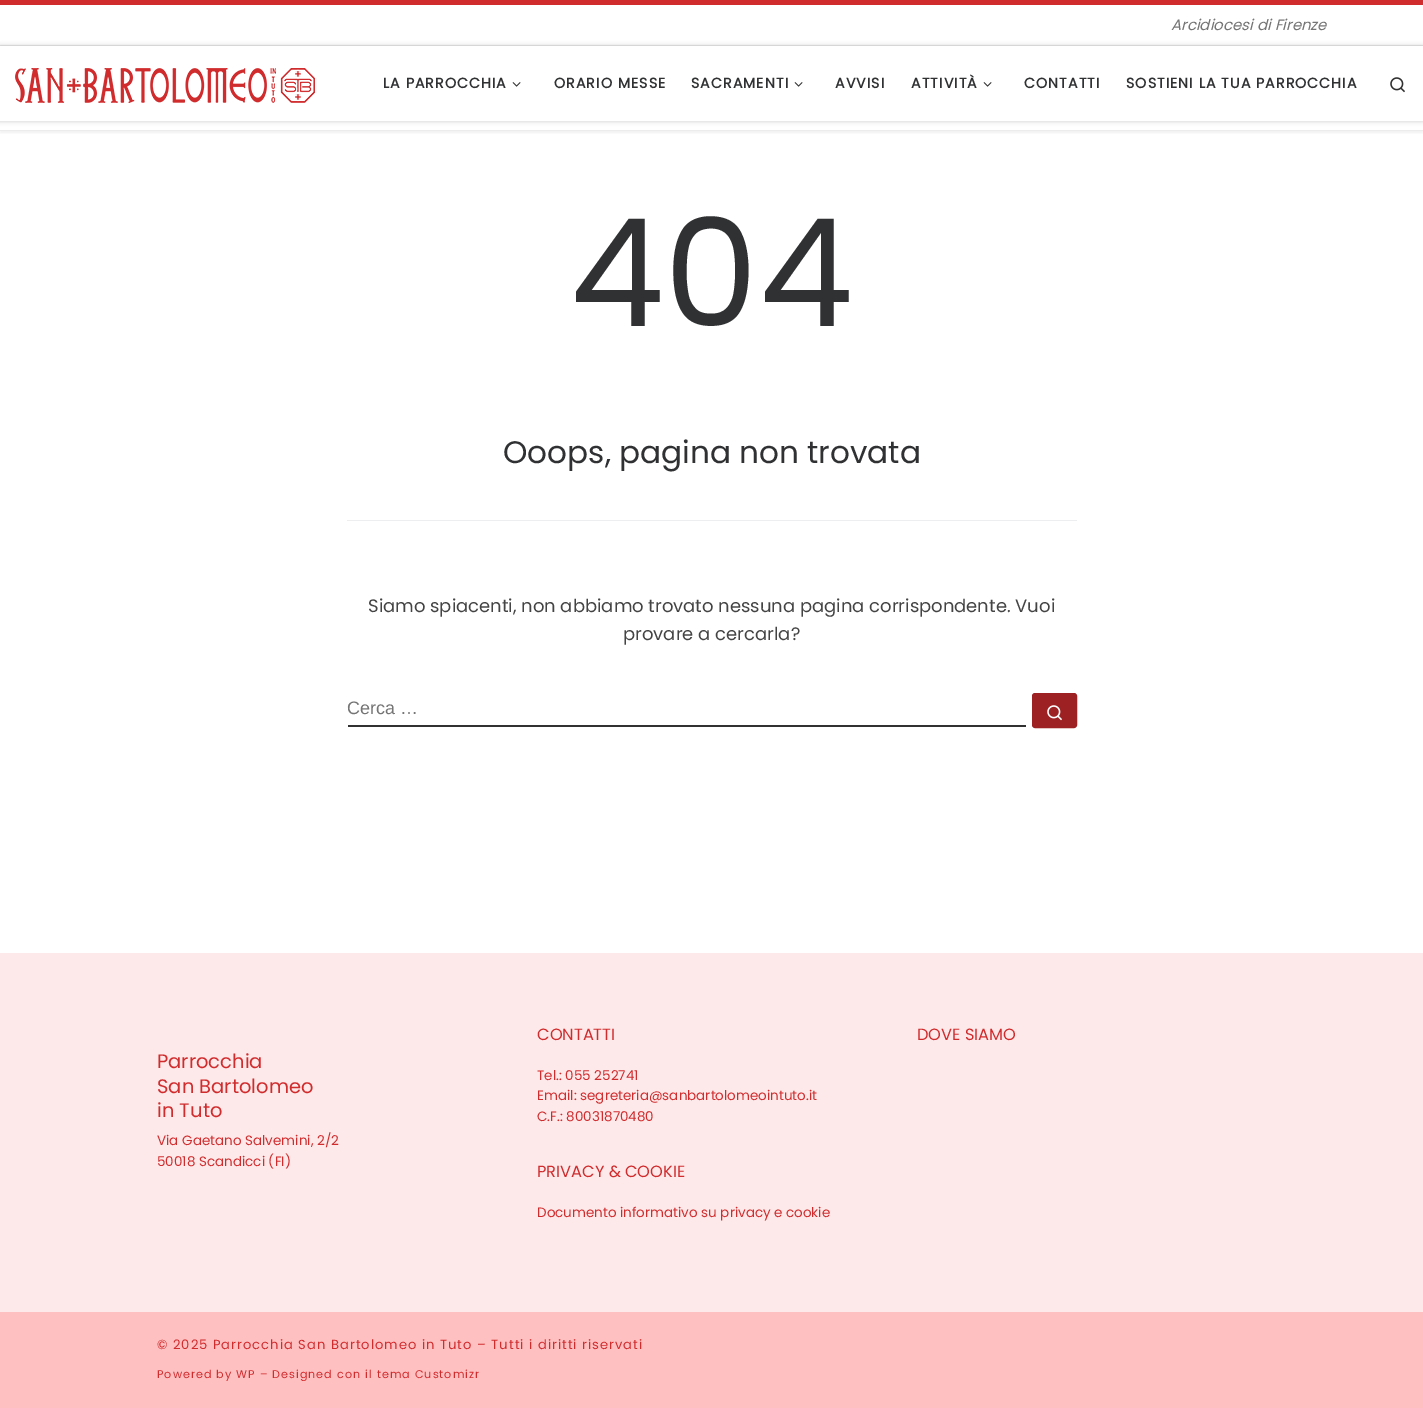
%!PS-Adobe-3.0
%%BoundingBox: 0 0 1423 1408
%%LanguageLevel: 3
%%Pages: 1
%%EndComments
%%BeginProlog
/setink { dup -16 bitshift 255 div exch dup -8 bitshift 255 and 255 div exch 255 and 255 div setrgbcolor } def
/usefont { [ exch dup neg 0 0 3 -1 roll 0 0 ] selectfont } def
/setalpha { dup .setfillconstantalpha .setstrokeconstantalpha } def
/rrect { 5 dict begin { /r /h /w /y /x } { exch def } forall
  x r add y moveto x w add y 2 copy h add r arct x w add y h add x 1 index r arct
  x y h add x y r arct x y 2 copy exch w add exch r arct closepath end } def
/softshadow { 12 dict begin { /a /b /q /h /w /y /x } { exch def } forall gsave /was 0 def
  9 -2 -9 { dup b mul 4 div /e exch def 1 sub .425 mul 2.718 exch exp 1 add a .99 .min exch div /now exch def
    1 1 now sub 1 was sub div sub setalpha /was now def
    w h .min e 2 mul add 0 gt { x e sub y e sub w e 2 mul add h e 2 mul add
      q e add b .6 mul add w h .min 2 div e add .min 0 .max rrect fill } if } for grestore end } def
/drawimage { 5 dict begin { /h /w /y /x /name } { exch def } forall
  gsave x y translate w h scale
  w h 8 [w 0 0 h 0 0] name (r) file false 3 colorimage grestore end } def
%%EndProlog
%%BeginSetup
<< /PageSize [1423 1408] /PageUsesTransparency true >> setpagedevice
%%EndSetup
%%Page: 1 1
0 .pushpdf14devicefilter
0 1408 translate 1 -1 scale
4 setmiterlimit
16#FFFFFF setink
0 0 1423 1408 rectfill
gsave
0 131 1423 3 rectclip
16#666666 setink
0 2 1423 131 0 1 0.08 softshadow
grestore
[
    [0 0 1423 5 16#D02C2E]
    [0 130 1423 1 16#ECECEC]
    [0 45 1423 1 16#ECECEC]
] { aload pop setink rectfill } forall
/Poppins-Italic 15 usefont
16#757575 setink
1171 30 moveto (Arcidiocesi di Firenze) show
gsave
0 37 moveto 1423 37 lineto 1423 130 lineto 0 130 lineto closepath 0 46 moveto 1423 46 lineto 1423 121 lineto 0 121 lineto closepath eoclip newpath
16#000000 setink
0 46 1423 75 0 2.5 0.2 softshadow
grestore
(img1.raw) 15 68 300 35 drawimage
/Poppins-Bold 14.25 usefont
16#303133 setink
383 88 moveto 1 0 (LA PARROCCHIA) ashow
(img2.raw) 512 82 9 5 drawimage
554 88 moveto 1 0 (ORARIO MESSE) ashow
691 88 moveto 1 0 (SACRAMENTI) ashow
(img2.raw) 794 82 9 5 drawimage
835 88 moveto 1 0 (AVVISI) ashow
911 88 moveto 1 0 (ATTIVITÀ) ashow
(img2.raw) 983 82 9 5 drawimage
1024 88 moveto 1 0 (CONTATTI) ashow
1126 88 moveto 1 0 (SOSTIENI LA TUA PARROCCHIA) ashow
(img3.raw) 1390 77 15 16 drawimage
/Poppins-Regular 150 usefont
570 326 moveto (404) show
/Poppins-Regular 31.1 usefont
503 463 moveto (Ooops, pagina non trovata) show
16#ECEEEF setink
347 520 730 1 rectfill
/Poppins-Regular 18 usefont
16#444444 setink
368 612 moveto (Siamo spiacenti, non abbiamo trovato nessuna pagina corrispondente. Vuoi) show
623 640 moveto (provare a cercarla?) show
16#313131 setink
348 725 678 2 rectfill
/LiberationSans-Regular 18 usefont
16#757575 setink
347 714 moveto (Cerca …) show
16#9D2123 setink
1033 694 43 33 2 rrect gsave fill grestore
2 setlinewidth
stroke
(img4.raw) 1047 705 15 16 drawimage
16#FDE9E9 setink
0 953 1423 359 rectfill
/Poppins-Regular 16.25 usefont
16#D02C2E setink
537 1040 moveto (CONTATTI) show
/Poppins-Regular 13.5 usefont
[
    [(Tel.: 055 252741) 537 1080]
    [(Email: segreteria@sanbartolomeointuto.it) 537 1100]
    [(C.F.: 80031870480) 537 1121]
] { aload pop moveto show } forall
/Poppins-Regular 16.25 usefont
537 1177 moveto (PRIVACY & COOKIE) show
/Poppins-Regular 13.5 usefont
537 1217 moveto (Documento informativo su privacy e cookie) show
/Poppins-Regular 16.25 usefont
917 1040 moveto (DOVE SIAMO) show
/Poppins-Regular 19.5 usefont
[
    [(Parrocchia) 157 1068]
    [(San Bartolomeo) 157 1093]
    [(in Tuto) 157 1117]
] { aload pop moveto show } forall
/Poppins-Regular 13.5 usefont
157 1145 moveto (Via Gaetano Salvemini, 2/2) show
157 1166 moveto (50018 Scandicci \(FI\)) show
16#FFC0C1 setink
0 1312 1423 96 rectfill
/Poppins-Regular 13.1 usefont
16#D02C2E setink
157 1349 moveto 1 0 (© 2025 Parrocchia San Bartolomeo in Tuto – Tutti i diritti riservati) ashow
/Poppins-Regular 11.2 usefont
157 1378 moveto 1 0 (Powered by WP – Designed con il tema Customizr) ashow
.poppdf14devicefilter showpage
%%EOF
